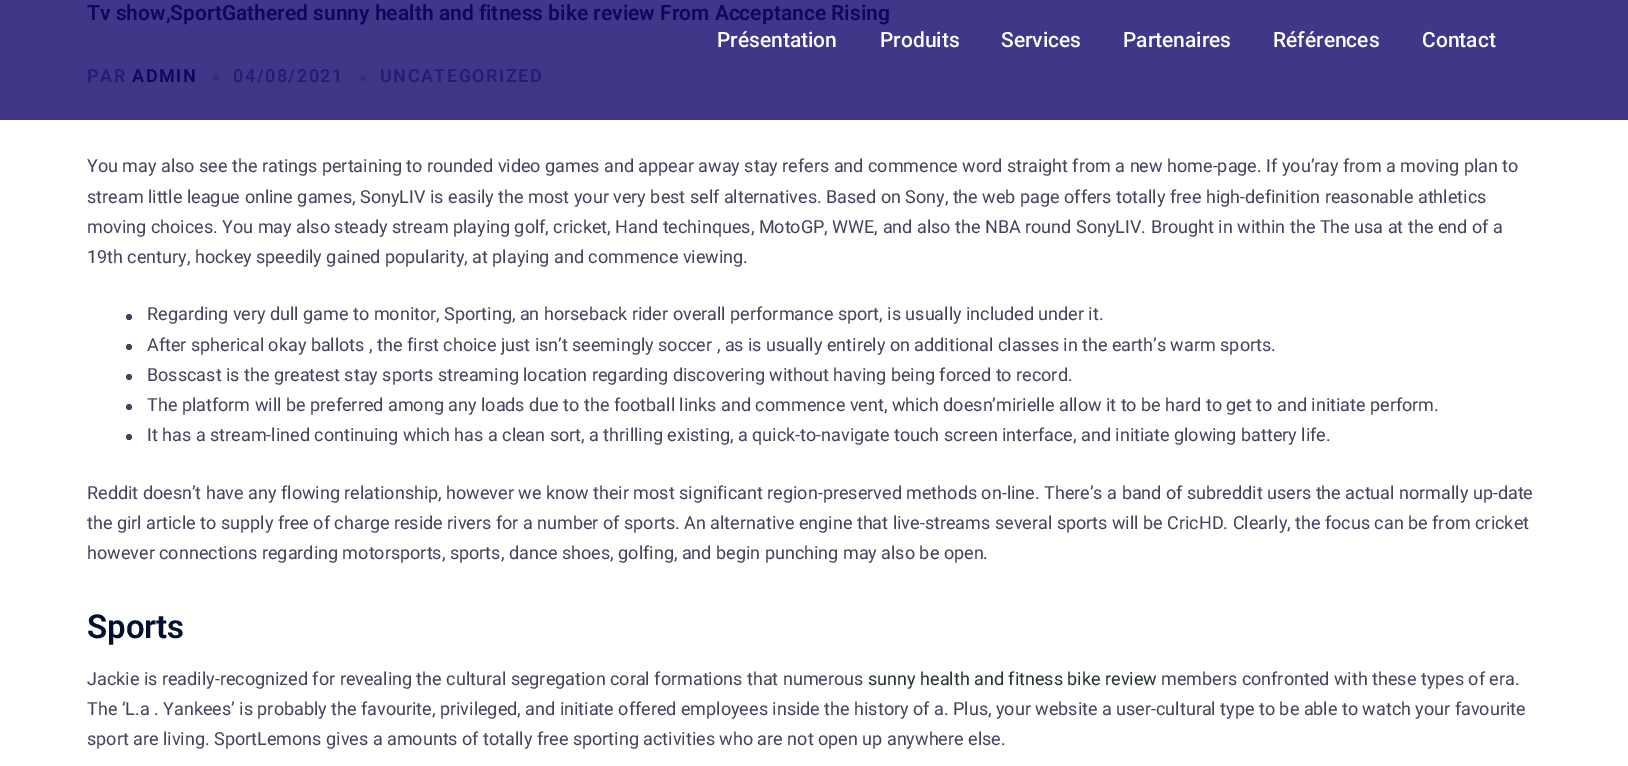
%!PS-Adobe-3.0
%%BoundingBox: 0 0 1628 766
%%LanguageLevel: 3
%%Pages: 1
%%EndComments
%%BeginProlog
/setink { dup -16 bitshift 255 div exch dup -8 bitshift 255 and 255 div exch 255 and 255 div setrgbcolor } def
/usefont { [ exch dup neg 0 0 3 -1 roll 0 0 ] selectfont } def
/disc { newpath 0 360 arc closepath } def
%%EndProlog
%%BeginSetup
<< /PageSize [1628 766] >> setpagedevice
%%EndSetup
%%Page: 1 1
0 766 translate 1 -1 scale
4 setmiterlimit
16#FFFFFF setink
0 0 1628 766 rectfill
16#403789 setink
0 0 1628 120 rectfill
/Roboto-SemiBold 21 usefont
16#0D075F setink
87 20 moveto (Tv show,SportGathered sunny health and fitness bike review From Acceptance Rising) show
/Roboto-SemiBold 18 usefont
16#241D72 setink
87 82 moveto 1.5 0 (PAR) ashow
16#0D075F setink
132 82 moveto 1.5 0 (ADMIN) ashow
16#362D80 setink
216 78 3 disc fill
16#241D72 setink
233 82 moveto 1.5 0 (04/08/2021) ashow
16#362D80 setink
363 78 3 disc fill
16#241D72 setink
380 82 moveto 1.5 0 (UNCATEGORIZED) ashow
/Roboto-Regular 18 usefont
16#46425E setink
[
    [(You may also see the ratings pertaining to rounded video games and appear away stay refers and commence word straight from a new home-page. If you’ray from a moving plan to) 87 172]
    [(stream little league online games, SonyLIV is easily the most your very best self alternatives. Based on Sony, the web page offers totally free high-definition reasonable athletics) 87 203]
    [(moving choices. You may also steady stream playing golf, cricket, Hand techinques, MotoGP, WWE, and also the NBA round SonyLIV. Brought in within the The usa at the end of a) 87 233]
    [(19th century, hockey speedily gained popularity, at playing and commence viewing.) 87 263]
] { aload pop moveto show } forall
129 317 3 disc fill
147 320 moveto (Regarding very dull game to monitor, Sporting, an horseback rider overall performance sport, is usually included under it.) show
129 347 3 disc fill
147 351 moveto (After spherical okay ballots , the first choice just isn’t seemingly soccer , as is usually entirely on additional classes in the earth’s warm sports.) show
129 377 3 disc fill
147 381 moveto (Bosscast is the greatest stay sports streaming location regarding discovering without having being forced to record.) show
129 407 3 disc fill
147 411 moveto (The platform will be preferred among any loads due to the football links and commence vent, which doesn’mirielle allow it to be hard to get to and initiate perform.) show
129 437 3 disc fill
[
    [(It has a stream-lined continuing which has a clean sort, a thrilling existing, a quick-to-navigate touch screen interface, and initiate glowing battery life.) 147 441]
    [(Reddit doesn’t have any flowing relationship, however we know their most significant region-preserved methods on-line. There’s a band of subreddit users the actual normally up-date) 87 499]
    [(the girl article to supply free of charge reside rivers for a number of sports. An alternative engine that live-streams several sports will be CricHD. Clearly, the focus can be from cricket) 87 529]
    [(however connections regarding motorsports, sports, dance shoes, golfing, and begin punching may also be open.) 87 559]
] { aload pop moveto show } forall
/Roboto-SemiBold 33 usefont
16#00102E setink
87 638 moveto (Sports) show
/Roboto-Regular 18 usefont
16#46425E setink
87 685 moveto (Jackie is readily-recognized for revealing the cultural segregation coral formations that numerous) show
16#233531 setink
868 685 moveto (sunny health and fitness bike review) show
16#46425E setink
[
    [(members confronted with these types of era.) 1161 685]
    [(The ‘L.a . Yankees’ is probably the favourite, privileged, and initiate offered employees inside the history of a. Plus, your website a user-cultural type to be able to watch your favourite) 87 715]
    [(sport are living. SportLemons gives a amounts of totally free sporting activities who are not open up anywhere else.) 87 745]
] { aload pop moveto show } forall
/Roboto-Medium 21 usefont
16#FFFFFF setink
[
    [(Présentation) 717 47]
    [(Produits) 880 47]
    [(Services) 1001 47]
    [(Partenaires) 1123 47]
    [(Références) 1273 47]
    [(Contact) 1422 47]
] { aload pop moveto show } forall
showpage
%%EOF
